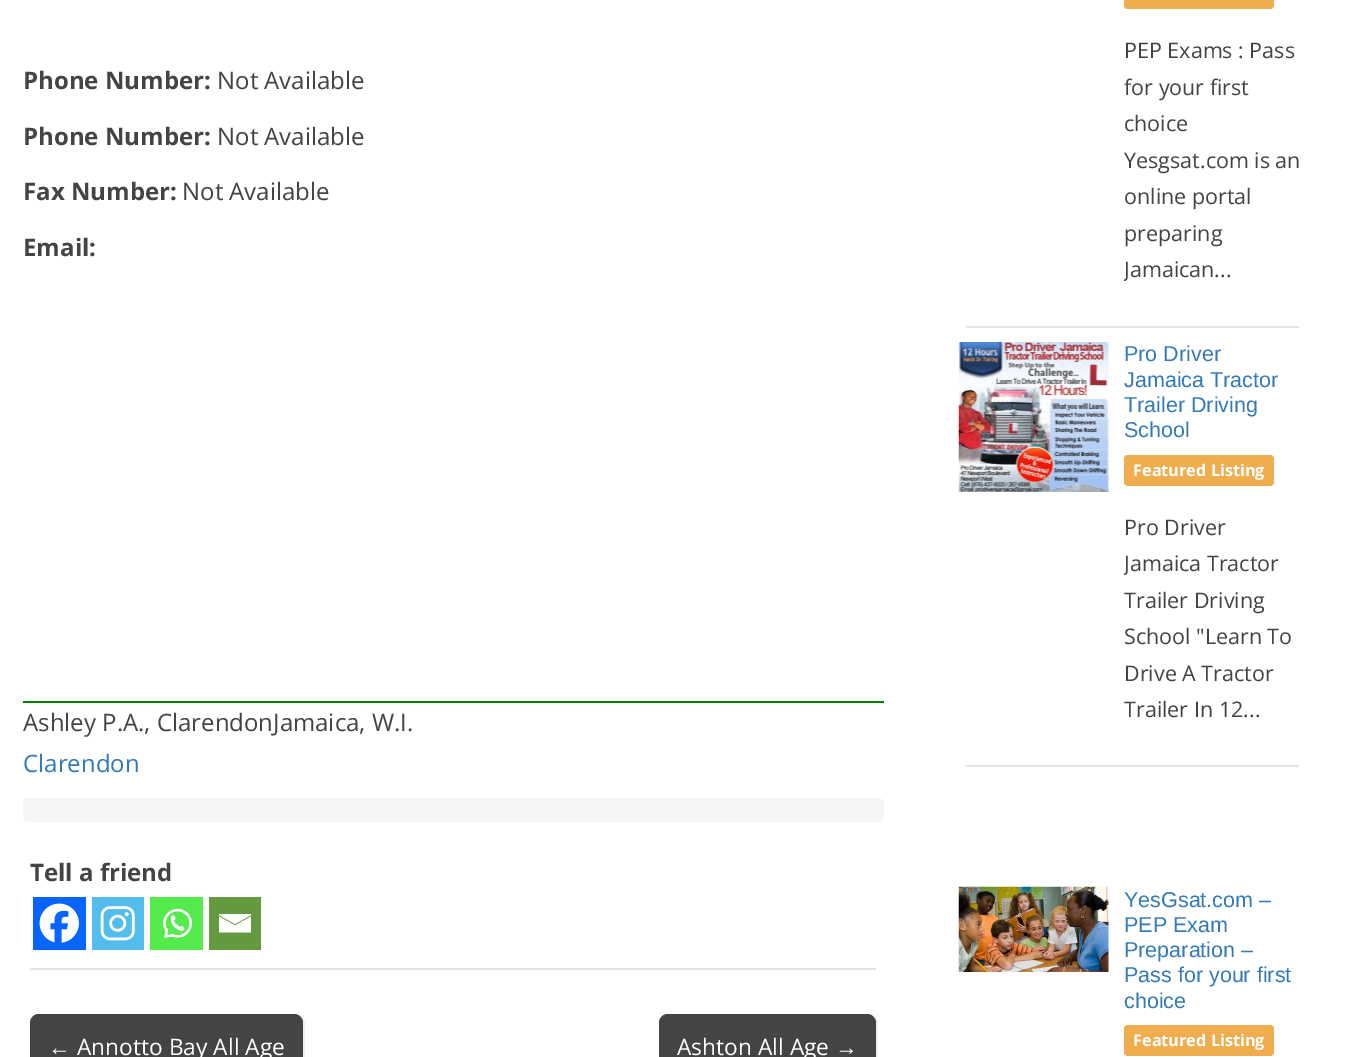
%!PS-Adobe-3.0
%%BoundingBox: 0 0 1359 1057
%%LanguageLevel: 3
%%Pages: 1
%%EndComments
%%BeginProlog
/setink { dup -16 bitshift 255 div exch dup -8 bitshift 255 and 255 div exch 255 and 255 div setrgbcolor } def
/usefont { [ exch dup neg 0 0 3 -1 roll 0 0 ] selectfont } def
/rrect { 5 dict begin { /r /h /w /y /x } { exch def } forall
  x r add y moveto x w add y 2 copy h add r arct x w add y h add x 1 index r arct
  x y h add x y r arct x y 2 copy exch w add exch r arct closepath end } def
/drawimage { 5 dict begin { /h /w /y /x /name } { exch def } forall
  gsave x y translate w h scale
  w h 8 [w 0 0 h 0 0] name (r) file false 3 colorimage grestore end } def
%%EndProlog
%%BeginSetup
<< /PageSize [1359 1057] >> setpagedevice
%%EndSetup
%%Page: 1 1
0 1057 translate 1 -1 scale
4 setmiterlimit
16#FFFFFF setink
0 0 1359 1057 rectfill
16#E2E2E2 setink
30 968 846 2 rectfill
/OpenSans-Bold 24 usefont
16#444444 setink
23 89 moveto (Phone Number:) show
/OpenSans-Regular 24 usefont
217 89 moveto (Not Available) show
/OpenSans-Bold 24 usefont
23 145 moveto (Phone Number:) show
/OpenSans-Regular 24 usefont
217 145 moveto (Not Available) show
/OpenSans-Bold 24 usefont
23 200 moveto (Fax Number:) show
/OpenSans-Regular 24 usefont
182 200 moveto (Not Available) show
/OpenSans-Bold 24 usefont
23 256 moveto (Email:) show
16#008000 setink
23 701 861 2 rectfill
/OpenSans-Regular 24 usefont
16#444444 setink
23 731 moveto (Ashley P.A., ClarendonJamaica, W.I.) show
16#337AB7 setink
23 772 moveto (Clarendon) show
16#F5F5F5 setink
23 798 861 24 6 rrect fill
/OpenSans-Bold 24 usefont
16#444444 setink
30 881 moveto (Tell a friend) show
16#0765FE setink
33 897 53 53 rectfill
(img1.raw) 39 903 40 40 drawimage
16#53BEEE setink
92 897 52 53 rectfill
(img2.raw) 100 906 35 35 drawimage
16#55EB4C setink
150 897 53 53 rectfill
(img3.raw) 163 908 29 30 drawimage
16#649A3F setink
209 897 52 53 rectfill
16#FFFFFF setink
217.5 914 moveto 251 914 lineto 251 915 lineto 235 924 lineto 219 915 lineto 219 914 lineto 219 916.5 moveto 235 925.5 lineto 251 916.5 lineto 251 932.5 lineto 219 932.5 lineto 219 916.5 lineto fill
16#EEEEEE setink
35 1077 moveto 36 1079 39 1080 41 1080 curveto 296 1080 lineto 301 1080 305 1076 305 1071 curveto 305 1025 lineto 305 1022 304 1019 301 1018 curveto 302 1019 303 1021 303 1023 curveto 303 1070 lineto 303 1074 299 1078 294 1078 curveto 39 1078 lineto 37 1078 36 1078 35 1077 curveto closepath fill
16#444444 setink
30 1014 273 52 9 rrect fill
/LiberationSans-Regular 22.75 usefont
16#FFFFFF setink
48 1055 moveto (←) show
/OpenSans-Regular 22.75 usefont
77 1055 moveto (Annotto Bay All Age) show
16#EEEEEE setink
662 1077 moveto 664 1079 666 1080 669 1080 curveto 869 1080 lineto 874 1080 878 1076 878 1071 curveto 878 1025 lineto 878 1022 877 1019 874 1018 curveto 875 1019 876 1021 876 1023 curveto 876 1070 lineto 876 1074 872 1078 867 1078 curveto 668 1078 lineto 665 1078 663 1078 662 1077 curveto closepath fill
16#444444 setink
659 1014 217 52 9 rrect fill
16#FFFFFF setink
677 1055 moveto (Ashton All Age) show
/LiberationSans-Regular 22.75 usefont
835 1055 moveto (→) show
16#F0AD4E setink
1124 -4 150 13 4 rrect fill
/OpenSans-Regular 21.5 usefont
16#444444 setink
[
    [(PEP Exams : Pass) 1124 58]
    [(for your first) 1124 95]
    [(choice) 1124 131]
    [(Yesgsat.com is an) 1124 168]
    [(online portal) 1124 204]
    [(preparing) 1124 241]
] { aload pop moveto show } forall
gsave
1124 0 183 311 rectclip
1124 277 moveto (Jamaican...) show
grestore
16#E5E5E5 setink
966 326 333 2 rectfill
(img4.raw) 958 342 151 150 drawimage
/LiberationSans-Regular 21.5 usefont
16#337AB7 setink
[
    [(Pro Driver) 1124 361]
    [(Jamaica Tractor) 1124 387]
    [(Trailer Driving) 1124 412]
    [(School) 1124 437]
] { aload pop moveto show } forall
16#F0AD4E setink
1124 455 150 31 4 rrect fill
/OpenSans-Bold 16.25 usefont
16#FFFFFF setink
1133 476 moveto (Featured Listing) show
/OpenSans-Regular 21.5 usefont
16#444444 setink
1124 535 moveto (Pro Driver) show
gsave
1124 342 183 408 rectclip
1124 571 moveto (Jamaica Tractor) show
grestore
[
    [(Trailer Driving) 1124 608]
    [(School "Learn To) 1124 644]
    [(Drive A Tractor) 1124 681]
    [(Trailer In 12...) 1124 717]
] { aload pop moveto show } forall
16#E5E5E5 setink
966 765 333 2 rectfill
(img5.raw) 958 886 151 86 drawimage
/LiberationSans-Regular 21.5 usefont
16#337AB7 setink
[
    [(YesGsat.com –) 1124 907]
    [(PEP Exam) 1124 932]
    [(Preparation –) 1124 957]
    [(Pass for your first) 1124 982]
    [(choice) 1124 1008]
] { aload pop moveto show } forall
16#F0AD4E setink
1124 1025 150 31 4 rrect fill
/OpenSans-Bold 16.25 usefont
16#FFFFFF setink
1133 1046 moveto (Featured Listing) show
showpage
%%EOF
